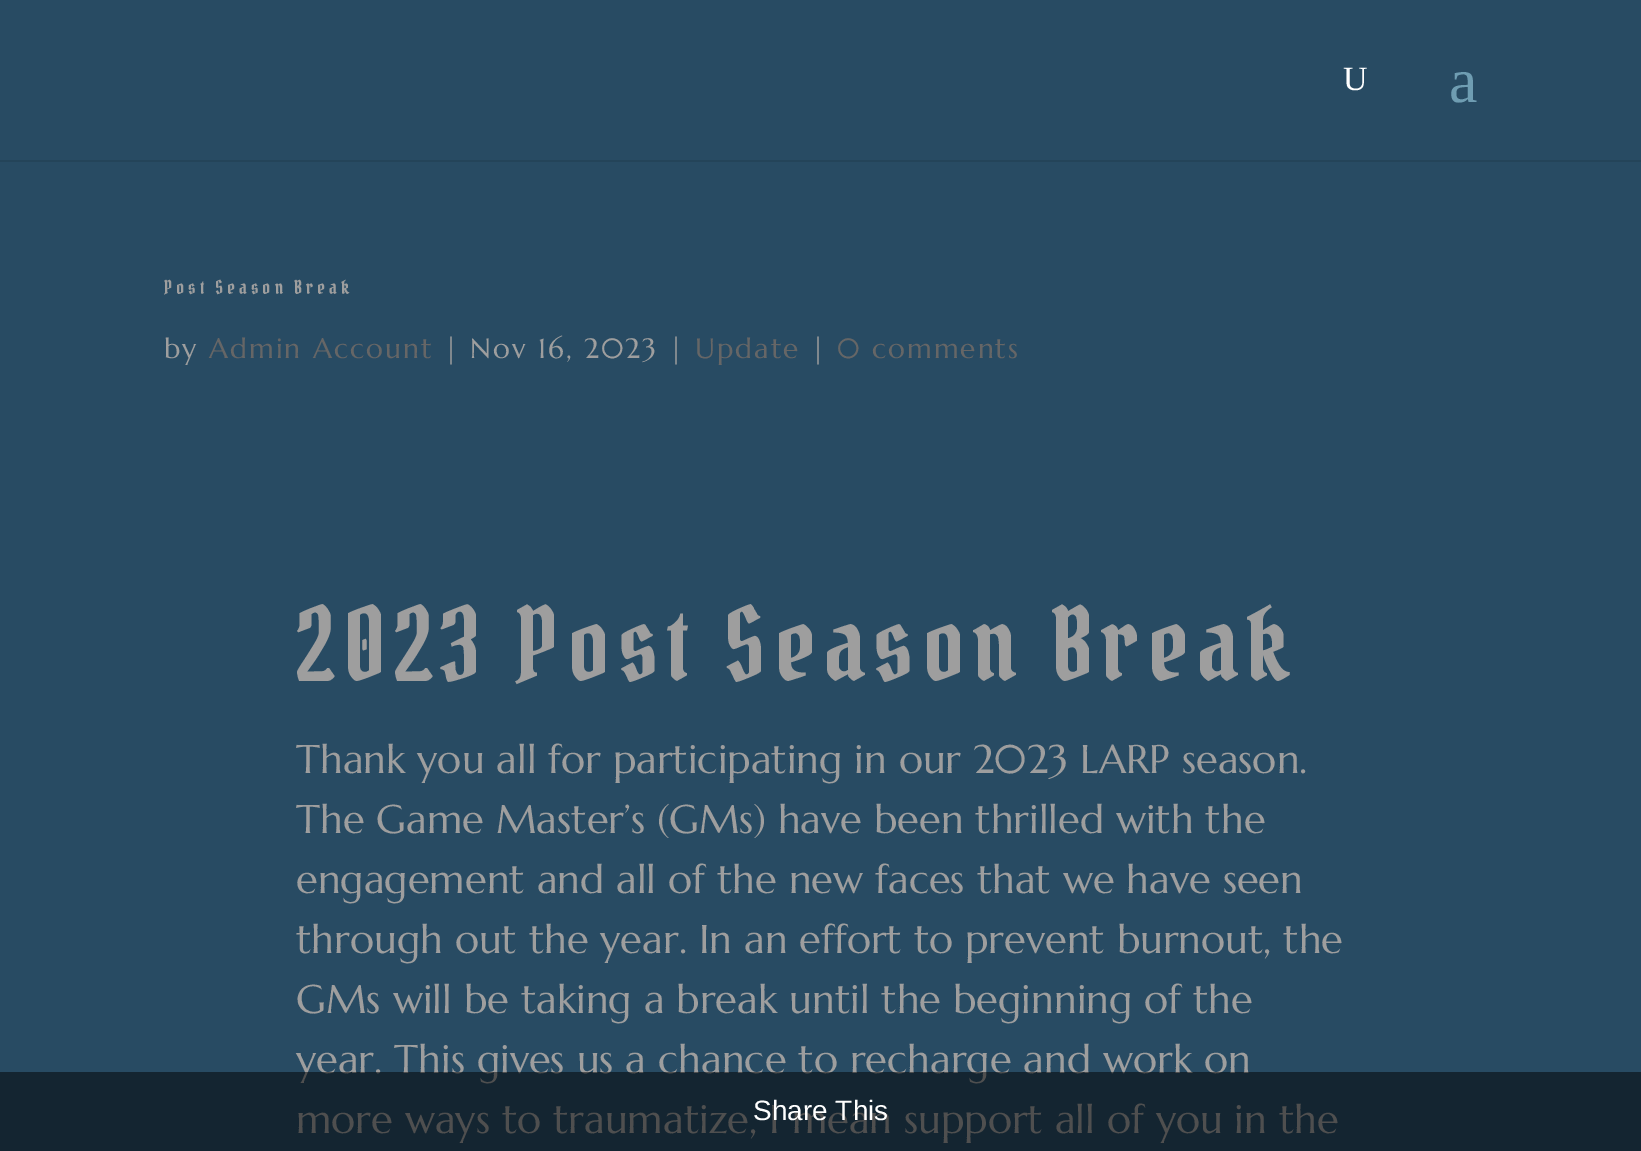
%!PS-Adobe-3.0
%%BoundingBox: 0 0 1641 1151
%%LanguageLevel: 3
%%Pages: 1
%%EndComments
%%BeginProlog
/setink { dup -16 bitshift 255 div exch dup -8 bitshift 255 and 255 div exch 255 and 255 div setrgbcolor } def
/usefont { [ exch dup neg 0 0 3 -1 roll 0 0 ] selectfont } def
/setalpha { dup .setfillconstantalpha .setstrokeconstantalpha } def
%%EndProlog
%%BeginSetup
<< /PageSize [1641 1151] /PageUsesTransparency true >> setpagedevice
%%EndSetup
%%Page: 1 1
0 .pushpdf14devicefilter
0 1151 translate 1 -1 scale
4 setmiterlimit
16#284B63 setink
0 0 1641 1151 rectfill
16#244459 setink
0 160 1641 2 rectfill
/LiberationSerif-Regular 34 usefont
16#FFFFFF setink
1343 90 moveto (U) show
/LiberationSerif-Regular 64 usefont
16#6F9DB2 setink
1449 102 moveto (a) show
/PirataOne-Regular 18.75 usefont
16#9E9E9E setink
164 294 moveto 4 0 (Post Season Break) ashow
/Marcellus-Regular 28 usefont
164 358 moveto 2 0 (by) ashow
16#666666 setink
209 358 moveto 2 0 (Admin Account) ashow
16#9E9E9E setink
444 358 moveto 2 0 (| Nov 16, 2023 |) ashow
16#666666 setink
695 358 moveto 2 0 (Update) ashow
16#9E9E9E setink
811 358 moveto 2 0 (|) ashow
16#666666 setink
837 358 moveto 2 0 (0 comments) ashow
/PirataOne-Regular 100 usefont
16#9E9E9E setink
296 681 moveto 8 0 (2023 Post Season Break) ashow
/Marcellus-Regular 40 usefont
[
    [(Thank you all for participating in our 2023 LARP season.) 296 773]
    [(The Game Master’s \(GMs\) have been thrilled with the) 296 833]
    [(engagement and all of the new faces that we have seen) 296 893]
    [(through out the year. In an effort to prevent burnout, the) 296 953]
    [(GMs will be taking a break until the beginning of the) 296 1013]
    [(year. This gives us a chance to recharge and work on) 296 1073]
    [(more ways to traumatize, I mean support all of you in the) 296 1133]
] { aload pop moveto show } forall
0.5 setalpha
16#000000 setink
0 1072 1641 79 rectfill
/LiberationSans-Regular 28 usefont
1 setalpha
16#FFFFFF setink
753 1120 moveto (Share This) show
.poppdf14devicefilter showpage
%%EOF
